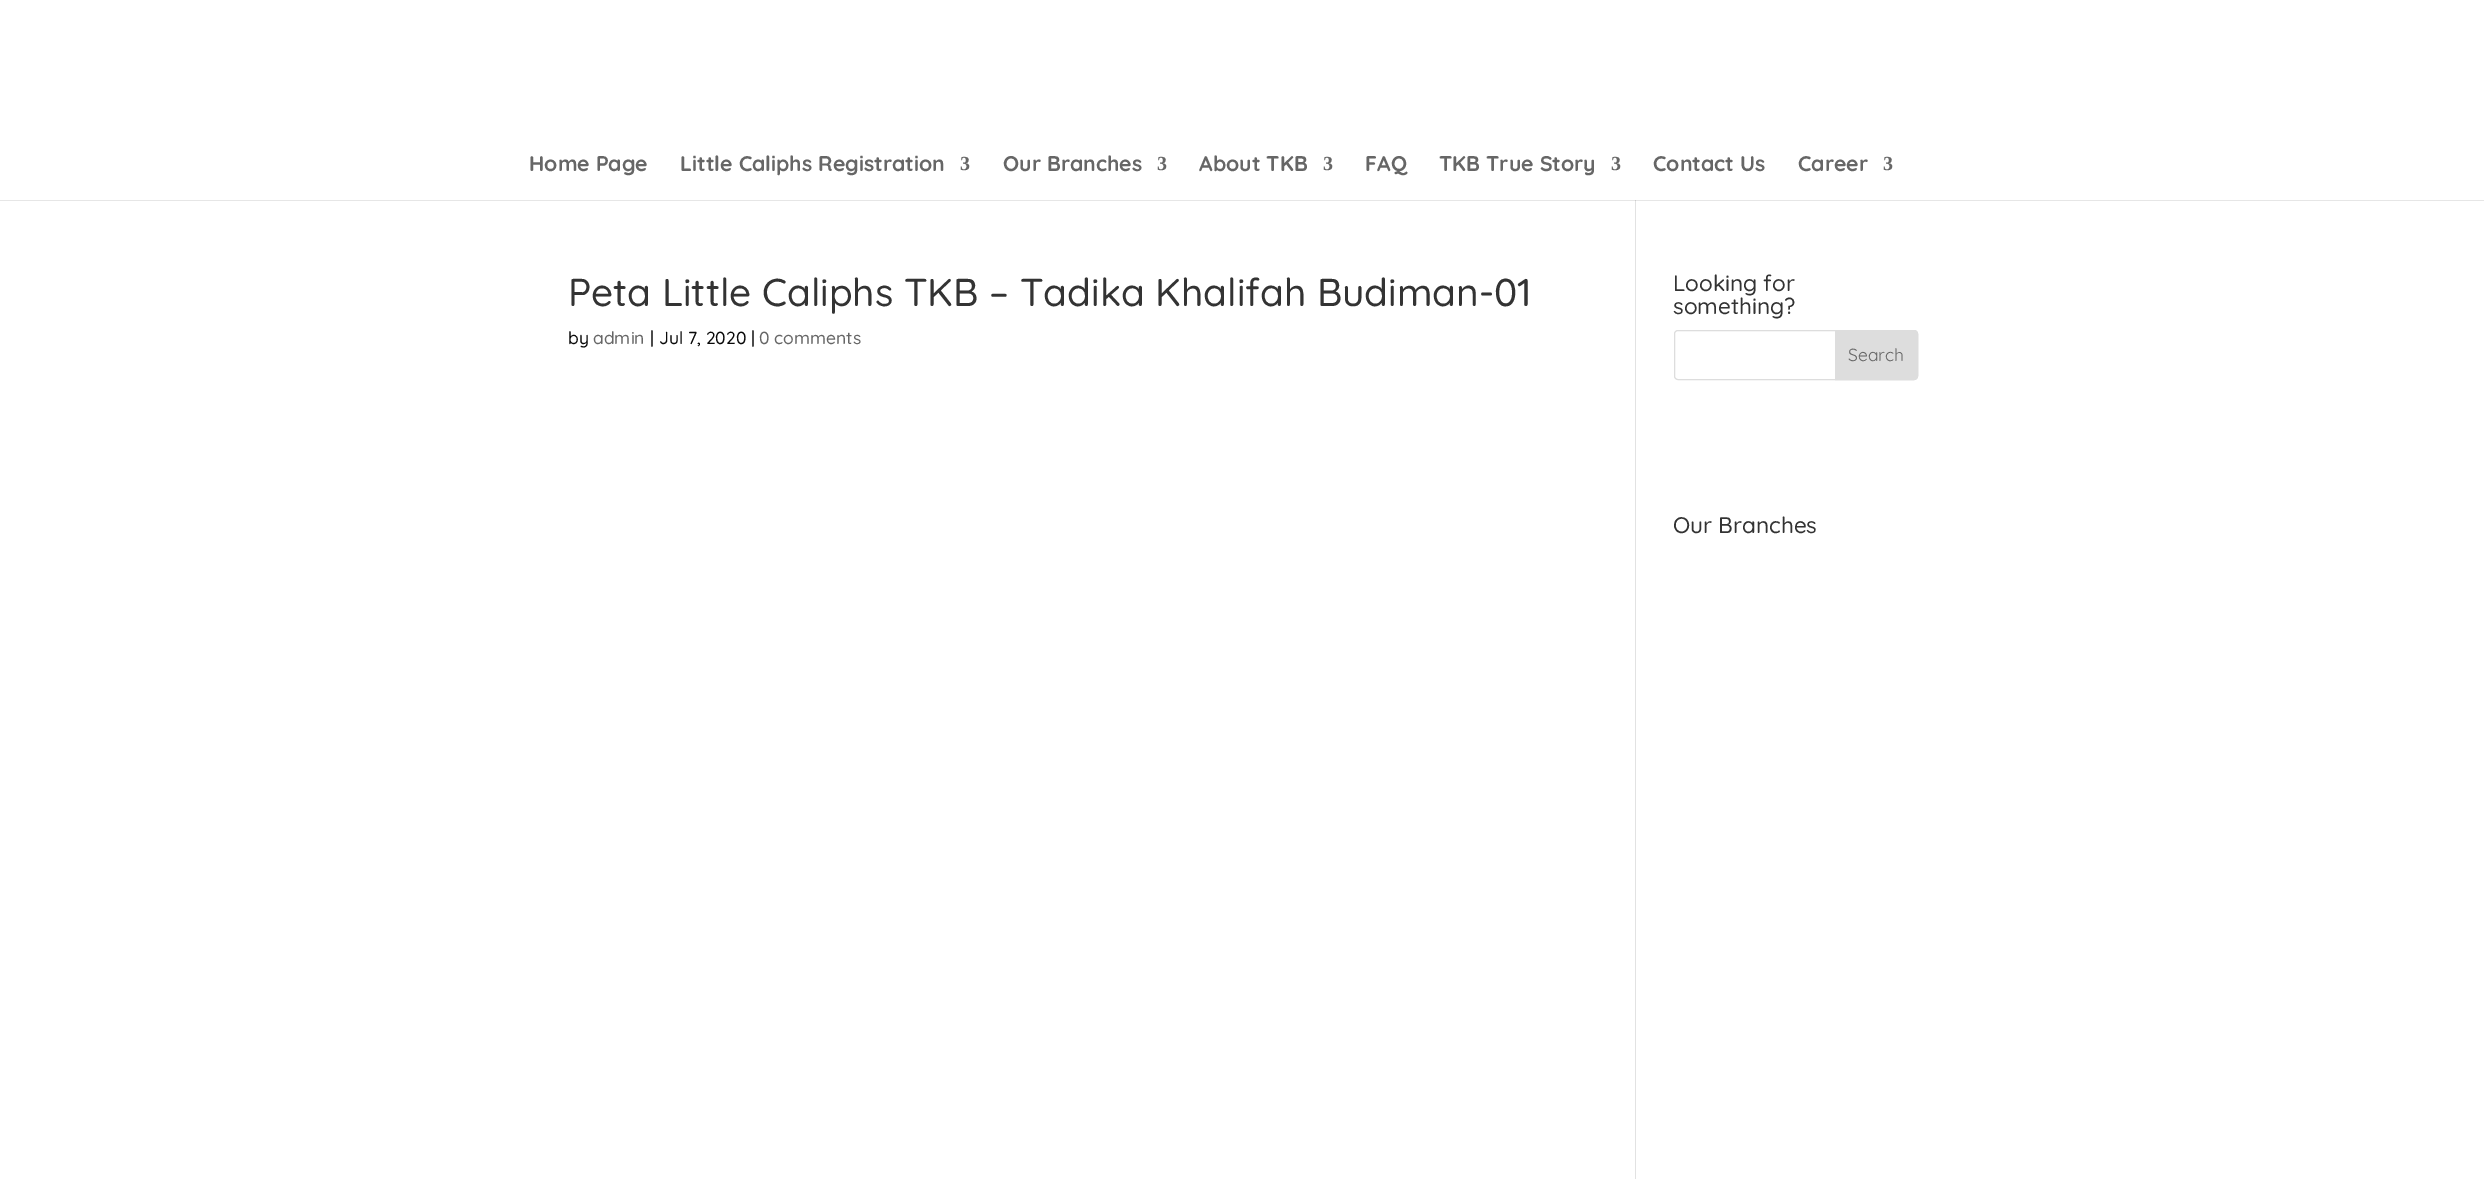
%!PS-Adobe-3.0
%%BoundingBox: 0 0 2484 1179
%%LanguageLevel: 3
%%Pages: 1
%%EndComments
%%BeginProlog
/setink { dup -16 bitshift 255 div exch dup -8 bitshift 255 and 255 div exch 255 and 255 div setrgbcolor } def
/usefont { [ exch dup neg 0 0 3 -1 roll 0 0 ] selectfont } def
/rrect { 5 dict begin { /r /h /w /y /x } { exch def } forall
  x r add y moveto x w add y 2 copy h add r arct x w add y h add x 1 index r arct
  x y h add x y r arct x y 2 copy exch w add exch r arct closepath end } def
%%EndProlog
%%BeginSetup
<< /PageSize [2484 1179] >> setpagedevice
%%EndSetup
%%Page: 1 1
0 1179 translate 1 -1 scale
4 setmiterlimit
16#FFFFFF setink
0 0 2484 1179 rectfill
16#E6E6E6 setink
0 200 2484 1 rectfill
/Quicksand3-Light 21.25 usefont
16#666666 setink
529 171 moveto (Home Page) show
680 171 moveto (Little Caliphs Registration) show
/LiberationSerif-Bold 20 usefont
960 170 moveto (3) show
/Quicksand3-Light 21.25 usefont
1003 171 moveto (Our Branches) show
/LiberationSerif-Bold 20 usefont
1157 170 moveto (3) show
/Quicksand3-Light 21.25 usefont
1199 171 moveto (About TKB) show
/LiberationSerif-Bold 20 usefont
1323 170 moveto (3) show
/Quicksand3-Light 21.25 usefont
1365 171 moveto (FAQ) show
1439 171 moveto (TKB True Story) show
/LiberationSerif-Bold 20 usefont
1611 170 moveto (3) show
/Quicksand3-Light 21.25 usefont
1653 171 moveto (Contact Us) show
1798 171 moveto (Career) show
/LiberationSerif-Bold 20 usefont
1883 170 moveto (3) show
16#E2E2E2 setink
1635 200 1 979 rectfill
16#CBCBCB setink
1635 200 1 1 rectfill
/Quicksand-Light 38.75 usefont
16#333333 setink
568 306 moveto (Peta Little Caliphs TKB – Tadika Khalifah Budiman-01) show
/Quicksand-Light 17.5 usefont
16#0A0A0A setink
568 344 moveto (by) show
16#666666 setink
593 344 moveto (admin) show
16#0A0A0A setink
650 344 moveto (| Jul 7, 2020 |) show
16#666666 setink
759 344 moveto (0 comments) show
/Quicksand-Light 22.5 usefont
16#333333 setink
1673 291 moveto (Looking for) show
1673 314 moveto (something?) show
16#DDDDDD setink
1674.5 330.5 243 49 3.5 rrect stroke
1835.5 330.5 moveto 1914 330.5 lineto 1916 330.5 1917.5 332 1917.5 334 curveto 1917.5 376 lineto 1917.5 378 1916 379.5 1914 379.5 curveto 1835.5 379.5 lineto closepath gsave fill grestore
stroke
/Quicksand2-Light 17.5 usefont
16#666666 setink
1848 361 moveto (Search) show
/Quicksand-Light 22.5 usefont
16#333333 setink
1673 533 moveto (Our Branches) show
showpage
%%EOF
